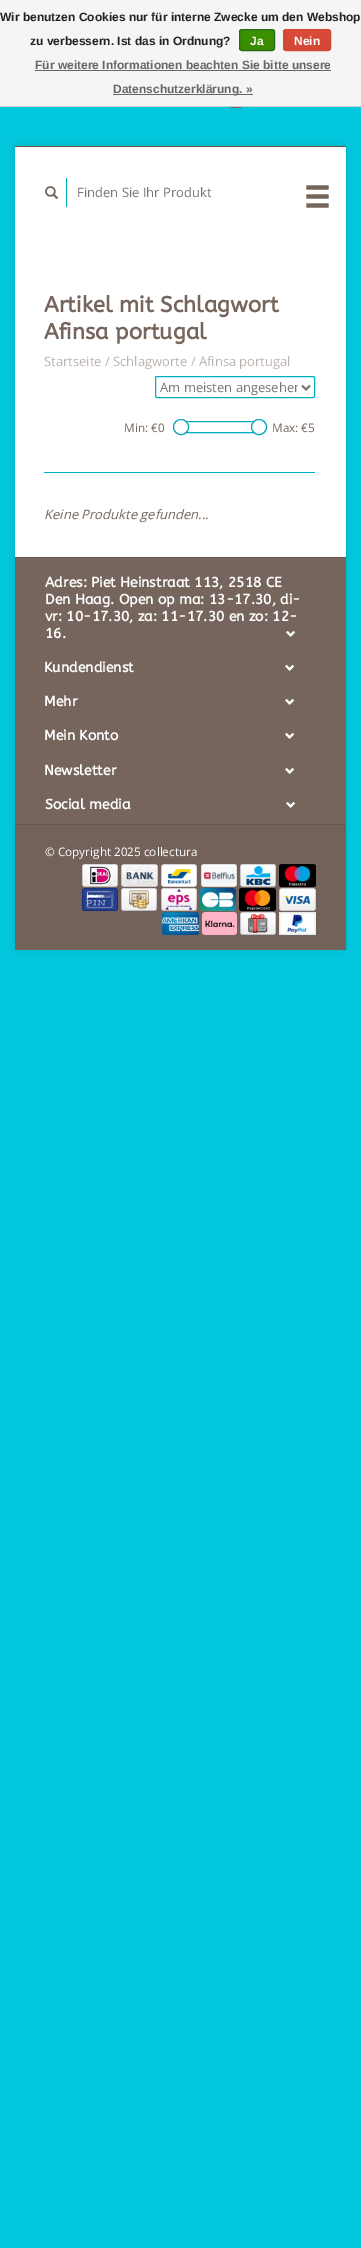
%!PS-Adobe-3.0
%%BoundingBox: 0 0 361 2248
%%LanguageLevel: 3
%%Pages: 1
%%EndComments
%%BeginProlog
/setink { dup -16 bitshift 255 div exch dup -8 bitshift 255 and 255 div exch 255 and 255 div setrgbcolor } def
/usefont { [ exch dup neg 0 0 3 -1 roll 0 0 ] selectfont } def
/setalpha { dup .setfillconstantalpha .setstrokeconstantalpha } def
/disc { newpath 0 360 arc closepath } def
/rrect { 5 dict begin { /r /h /w /y /x } { exch def } forall
  x r add y moveto x w add y 2 copy h add r arct x w add y h add x 1 index r arct
  x y h add x y r arct x y 2 copy exch w add exch r arct closepath end } def
/softshadow { 12 dict begin { /a /b /q /h /w /y /x } { exch def } forall gsave /was 0 def
  9 -2 -9 { dup b mul 4 div /e exch def 1 sub .425 mul 2.718 exch exp 1 add a .99 .min exch div /now exch def
    1 1 now sub 1 was sub div sub setalpha /was now def
    w h .min e 2 mul add 0 gt { x e sub y e sub w e 2 mul add h e 2 mul add
      q e add b .6 mul add w h .min 2 div e add .min 0 .max rrect fill } if } for grestore end } def
/drawimage { 5 dict begin { /h /w /y /x /name } { exch def } forall
  gsave x y translate w h scale
  w h 8 [w 0 0 h 0 0] name (r) file false 3 colorimage grestore end } def
%%EndProlog
%%BeginSetup
<< /PageSize [361 2248] /PageUsesTransparency true >> setpagedevice
%%EndSetup
%%Page: 1 1
0 .pushpdf14devicefilter
0 2248 translate 1 -1 scale
4 setmiterlimit
16#02C7DD setink
0 0 361 2248 rectfill
16#F5F5F5 setink
0 0 361 106 rectfill
16#CCCCCC setink
0 106 361 1 rectfill
/LiberationSans-Bold 12 usefont
16#222222 setink
0 21 moveto (Wir benutzen Cookies nur für interne Zwecke um den Webshop) show
30 45 moveto (zu verbessern. Ist das in Ordnung?) show
gsave
239 29 36 22 3 rrect clip newpath
gsave 239 30 moveto 275 30 lineto 275 50 lineto 239 50 lineto closepath clip newpath
<< /ShadingType 2 /ColorSpace /DeviceRGB /Coords [257 30 257 50] /Extend [true true] /Function << /FunctionType 2 /Domain [0 1] /C0 [0.235 0.576 0] /C1 [0.224 0.541 0] /N 1 >> >> shfill grestore
grestore
16#29691D setink
239.5 29.5 35 21 2.5 rrect stroke
16#FFFFFF setink
250 45 moveto (Ja) show
gsave
283 29 48 22 3 rrect clip newpath
gsave 283 30 moveto 331 30 lineto 331 50 lineto 283 50 lineto closepath clip newpath
<< /ShadingType 2 /ColorSpace /DeviceRGB /Coords [307 30 307 50] /Extend [true true] /Function << /FunctionType 2 /Domain [0 1] /C0 [0.863 0.29 0.22] /C1 [0.82 0.282 0.212] /N 1 >> >> shfill grestore
grestore
16#D14836 setink
283.5 29.5 47 21 2.5 rrect stroke
16#FFFFFF setink
294 45 moveto (Nein) show
16#666666 setink
35 69 moveto (Für weitere Informationen beachten Sie bitte unsere) show
35 70 296 1 rectfill
113 94 140 1 rectfill
113 93 moveto (Datenschutzerklärung. ») show
(img1.raw) 231 107 11 1 drawimage
16#000000 setink
15 146 331 804 2 3.5 0.13 softshadow
16#FFFFFF setink
15 146 331 804 2 rrect fill
0.04 setalpha
16#000000 setink
15 147 331 1 rectfill
1 setalpha
16#675850 setink
15 146 331 1 rectfill
gsave
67 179 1 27 rectclip
16#000000 setink
40 179 28 27 0 0.5 0.06 softshadow
grestore
16#01AFC2 setink
66 178 1 29 rectfill
(img2.raw) 45 186 13 13 drawimage
/OpenSans-Regular 13 usefont
16#757575 setink
77 197 moveto (Finden Sie Ihr Produkt) show
(img3.raw) 306 185 23 23 drawimage
/ABeeZee-Bold 22 usefont
16#76655C setink
44 312 moveto (Artikel mit Schlagwort) show
44 339 moveto (Afinsa portugal) show
/OpenSans-Regular 13 usefont
16#BAB2AD setink
44 366 moveto (Startseite / Schlagworte / Afinsa portugal) show
16#01AFC2 setink
155.5 376.5 159 21 1.5 rrect stroke
16#777777 setink
2 setlinewidth
302 385.5 moveto 306 389.5 lineto 310 385.5 lineto stroke
gsave
160 377 138 20 rectclip
16#757575 setink
160 392 moveto (Am meisten angesehen) show
grestore
/OpenSans-Regular 11.75 usefont
16#76655C setink
124 432 moveto (Min: €0) show
16#F5F5F5 setink
182 433 78 1 rectfill
16#01AFC2 setink
1 setlinewidth
182.5 421.5 77 11 rectstroke
0.04 setalpha
16#000000 setink
173 427.5 moveto 172.5 438.5 189.5 438.5 189 427.5 curveto 188.5 437.5 173.5 437.5 173 427.5 curveto closepath fill
1 setalpha
16#FFFFFF setink
181 427 7.5 disc gsave fill grestore
16#01A3B5 setink
stroke
0.04 setalpha
16#000000 setink
251 427.5 moveto 250.5 438.5 267.5 438.5 267 427.5 curveto 266.5 437.5 251.5 437.5 251 427.5 curveto closepath fill
1 setalpha
16#FFFFFF setink
259 427 7.5 disc gsave fill grestore
16#01A3B5 setink
stroke
16#76655C setink
272 432 moveto (Max: €5) show
16#01AFC2 setink
44 472 271 1 rectfill
/OpenSans-Italic 13 usefont
16#76655C setink
44 519 moveto (Keine Produkte gefunden...) show
15 558 331 266 rectfill
16#675850 setink
15 557 331 1 rectfill
/ABeeZee-Bold 14 usefont
16#FFFFFF setink
[
    [(Adres: Piet Heinstraat 113, 2518 CE) 45 587]
    [(Den Haag. Open op ma: 13-17.30, di-) 45 604]
    [(vr: 10-17.30, za: 11-17.30 en zo: 12-) 45 621]
    [(16.) 45 638]
] { aload pop moveto show } forall
(img4.raw) 286 630 10 7 drawimage
44 672 moveto (Kundendienst) show
(img4.raw) 285 664 10 7 drawimage
44 706 moveto (Mehr) show
(img4.raw) 285 698 10 7 drawimage
44 740 moveto (Mein Konto) show
(img4.raw) 285 732 10 7 drawimage
16#675850 setink
15 824 331 1 rectfill
16#FFFFFF setink
44 775 moveto (Newsletter) show
(img4.raw) 285 767 10 7 drawimage
45 809 moveto (Social media) show
(img4.raw) 286 801 10 7 drawimage
16#736259 setink
15 825 331 125 rectfill
/OpenSans-Regular 11.75 usefont
16#FFFFFF setink
45 856 moveto (© Copyright 2025 collectura) show
(img5.raw) 82 864 36 23 drawimage
(img6.raw) 121 864 37 23 drawimage
(img7.raw) 161 864 36 23 drawimage
(img8.raw) 201 864 36 23 drawimage
(img9.raw) 240 864 36 23 drawimage
(img10.raw) 279 864 37 23 drawimage
(img11.raw) 82 888 36 23 drawimage
(img12.raw) 121 888 36 23 drawimage
(img13.raw) 161 888 36 23 drawimage
(img14.raw) 200 888 36 23 drawimage
(img15.raw) 239 888 37 23 drawimage
(img16.raw) 279 888 37 23 drawimage
(img17.raw) 162 912 37 23 drawimage
(img18.raw) 202 912 35 23 drawimage
(img19.raw) 240 912 36 23 drawimage
(img20.raw) 279 912 37 23 drawimage
.poppdf14devicefilter showpage
%%EOF
